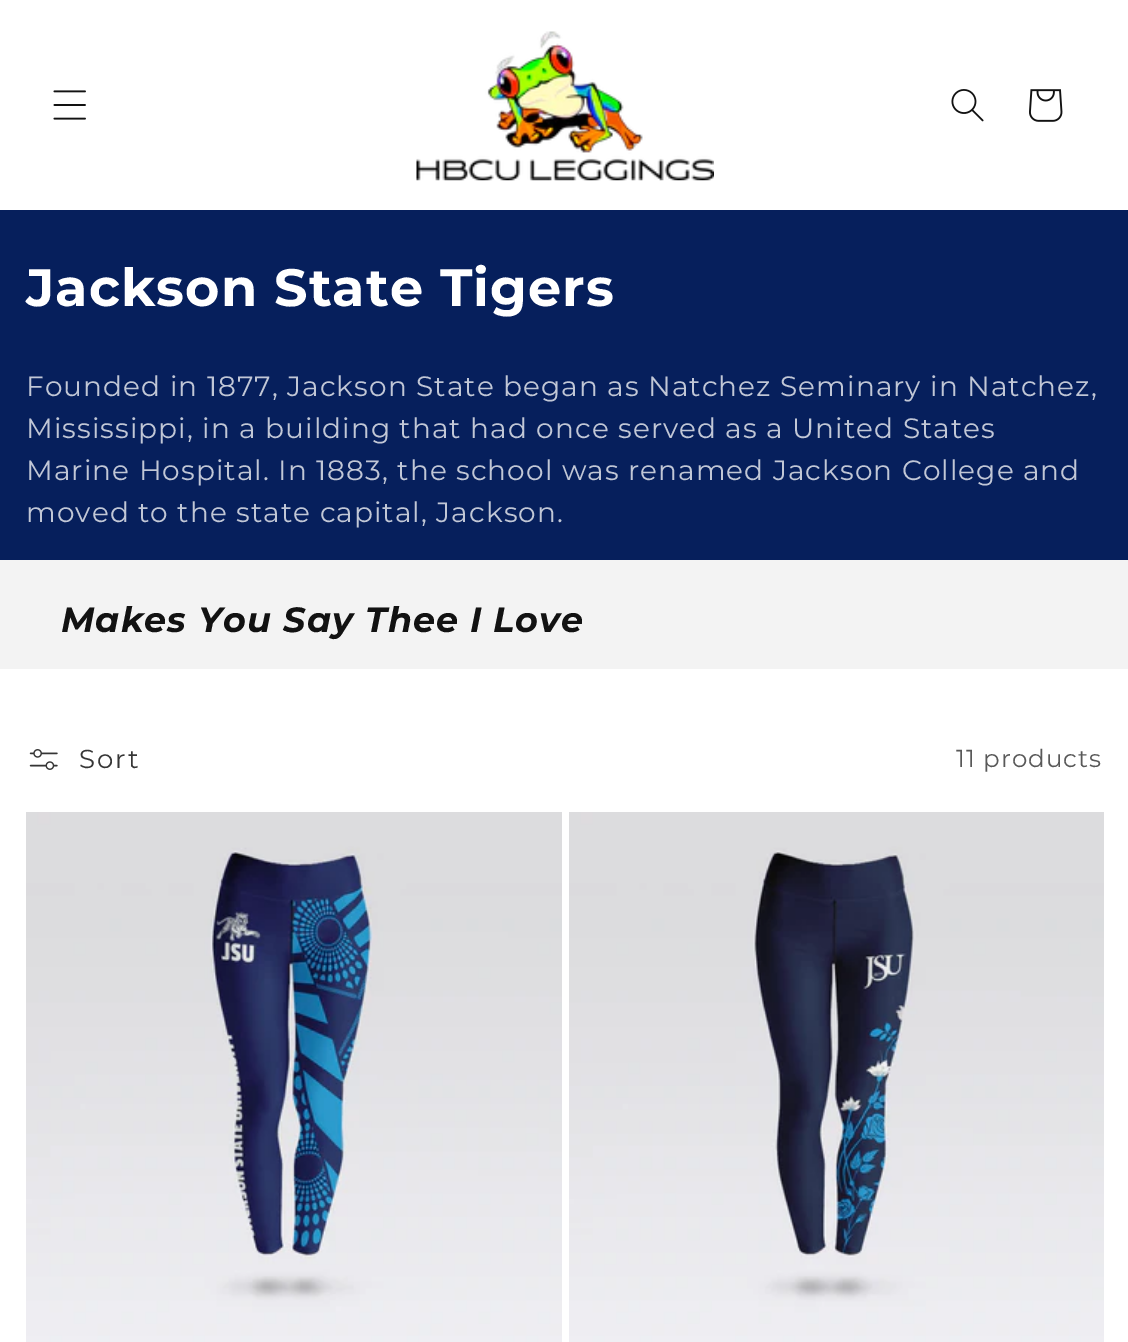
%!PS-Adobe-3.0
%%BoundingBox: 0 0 1128 1342
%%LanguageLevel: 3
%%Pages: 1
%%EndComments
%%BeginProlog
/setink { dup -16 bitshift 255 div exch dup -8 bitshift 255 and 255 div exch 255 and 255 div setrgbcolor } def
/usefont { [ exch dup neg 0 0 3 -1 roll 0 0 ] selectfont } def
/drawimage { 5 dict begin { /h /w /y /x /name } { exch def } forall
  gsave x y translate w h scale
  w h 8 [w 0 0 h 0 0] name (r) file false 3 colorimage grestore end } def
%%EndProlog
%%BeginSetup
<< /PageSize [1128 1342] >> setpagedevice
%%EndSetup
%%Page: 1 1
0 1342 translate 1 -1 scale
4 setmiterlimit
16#FFFFFF setink
0 0 1128 1342 rectfill
(img1.raw) 53 90 33 30 drawimage
(img2.raw) 416 31 298 150 drawimage
(img3.raw) 951 89 33 33 drawimage
(img4.raw) 1029 89 34 33 drawimage
16#061F5C setink
0 210 1128 350 rectfill
/Montserrat-Bold 52.5 usefont
16#FFFFFF setink
26 306 moveto 1.05 0 (Jackson State Tigers) ashow
/Montserrat-Thin 28 usefont
16#C1C7D6 setink
26 396 moveto 1.05 0 (Founded in 1877, Jackson State began as Natchez Seminary in Natchez,) ashow
26 438 moveto 1.05 0 (Mississippi, in a building that had once served as a United States) ashow
26 480 moveto 1.05 0 (Marine Hospital. In 1883, the school was renamed Jackson College and) ashow
26 522 moveto 1.05 0 (moved to the state capital, Jackson.) ashow
16#F3F3F3 setink
0 560 1128 109 rectfill
/Montserrat-BoldItalic 35 usefont
16#121212 setink
61 632 moveto 1.05 0 (Makes You Say Thee I Love) ashow
(img5.raw) 29 749 29 21 drawimage
/Montserrat-Thin 26 usefont
16#363636 setink
79 768 moveto 2 0 (Sort) ashow
/Montserrat-Thin 24.5 usefont
16#595959 setink
956 767 moveto 1.05 0 (11 products) ashow
(img6.raw) 26 812 536 530 drawimage
(img7.raw) 569 812 535 530 drawimage
showpage
%%EOF
